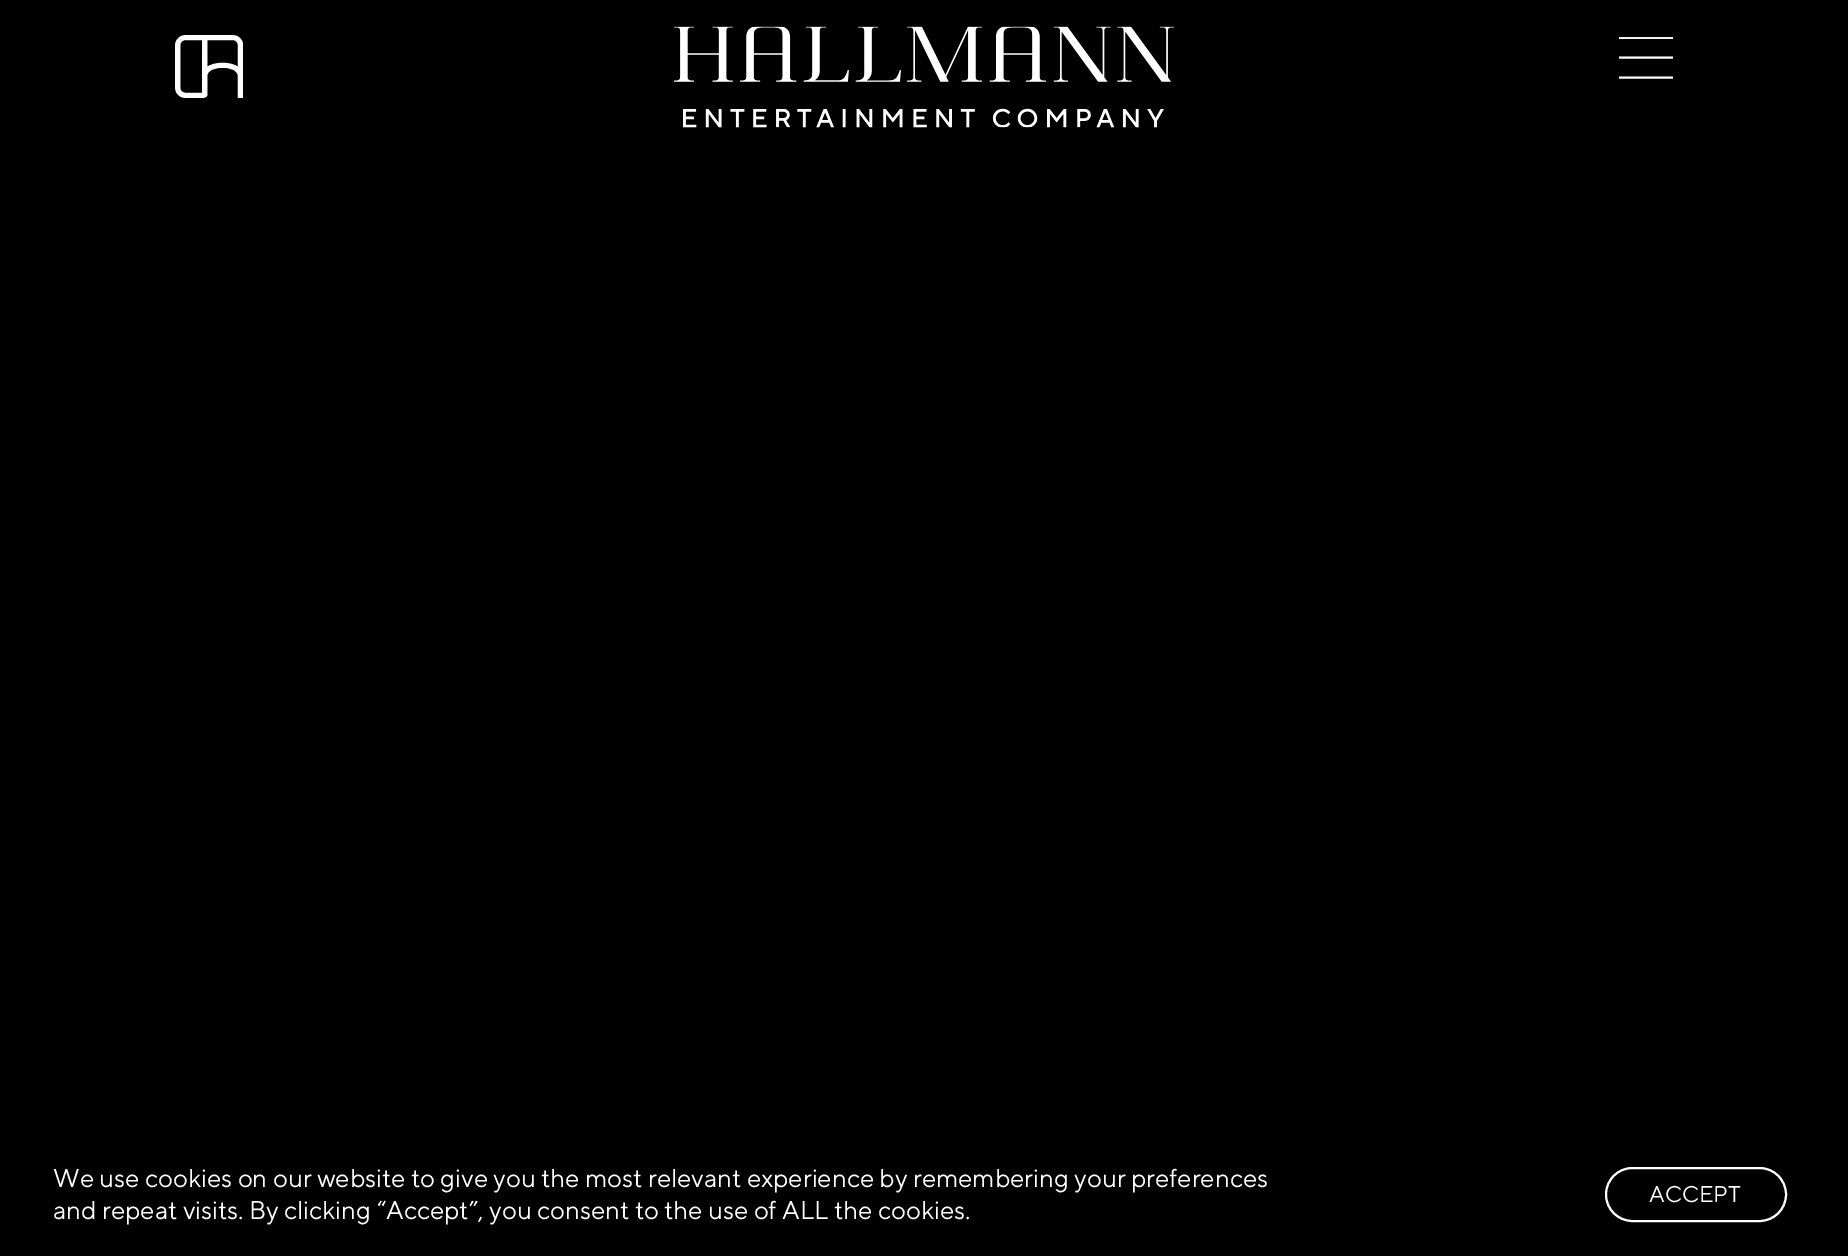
%!PS-Adobe-3.0
%%BoundingBox: 0 0 1848 1256
%%LanguageLevel: 3
%%Pages: 1
%%EndComments
%%BeginProlog
/setink { dup -16 bitshift 255 div exch dup -8 bitshift 255 and 255 div exch 255 and 255 div setrgbcolor } def
/usefont { [ exch dup neg 0 0 3 -1 roll 0 0 ] selectfont } def
/rrect { 5 dict begin { /r /h /w /y /x } { exch def } forall
  x r add y moveto x w add y 2 copy h add r arct x w add y h add x 1 index r arct
  x y h add x y r arct x y 2 copy exch w add exch r arct closepath end } def
/drawimage { 5 dict begin { /h /w /y /x /name } { exch def } forall
  gsave x y translate w h scale
  w h 8 [w 0 0 h 0 0] name (r) file false 3 colorimage grestore end } def
%%EndProlog
%%BeginSetup
<< /PageSize [1848 1256] >> setpagedevice
%%EndSetup
%%Page: 1 1
0 1256 translate 1 -1 scale
4 setmiterlimit
16#000000 setink
0 0 1848 1256 rectfill
(img1.raw) 175 35 68 63 drawimage
(img2.raw) 674 26 500 102 drawimage
16#F2F2F2 setink
1619 37 54 2 rectfill
16#FFFFFF setink
1.9 setlinewidth
1619 57.5 moveto 1673 57.5 lineto 1619 77.5 moveto 1673 77.5 lineto stroke
/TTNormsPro-Regular 25.65 usefont
53 1187 moveto (We use cookies on our website to give you the most relevant experience by remembering your preferences) show
53 1219 moveto (and repeat visits. By clicking “Accept”, you consent to the use of ALL the cookies.) show
2 setlinewidth
1606 1168 180 53 26.5 rrect stroke
/TTNormsPro-Regular 22.75 usefont
1649 1202 moveto (ACCEPT) show
showpage
%%EOF
